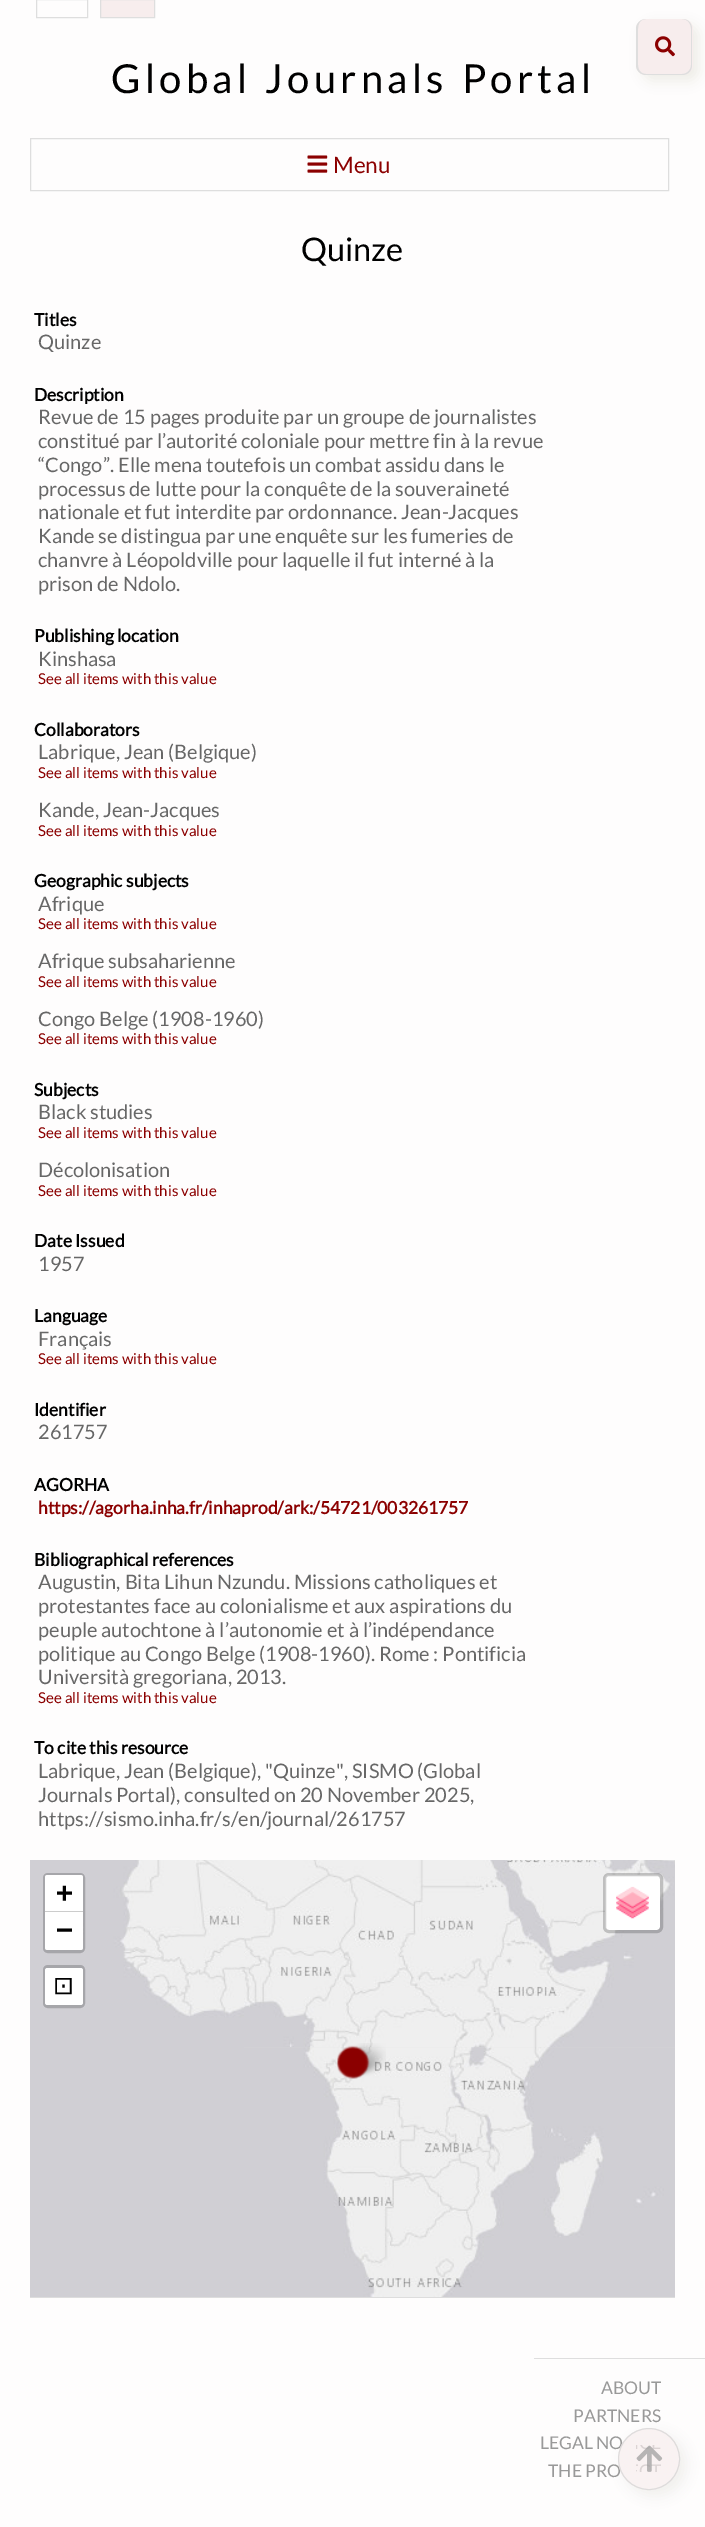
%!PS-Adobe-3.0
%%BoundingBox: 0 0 705 2527
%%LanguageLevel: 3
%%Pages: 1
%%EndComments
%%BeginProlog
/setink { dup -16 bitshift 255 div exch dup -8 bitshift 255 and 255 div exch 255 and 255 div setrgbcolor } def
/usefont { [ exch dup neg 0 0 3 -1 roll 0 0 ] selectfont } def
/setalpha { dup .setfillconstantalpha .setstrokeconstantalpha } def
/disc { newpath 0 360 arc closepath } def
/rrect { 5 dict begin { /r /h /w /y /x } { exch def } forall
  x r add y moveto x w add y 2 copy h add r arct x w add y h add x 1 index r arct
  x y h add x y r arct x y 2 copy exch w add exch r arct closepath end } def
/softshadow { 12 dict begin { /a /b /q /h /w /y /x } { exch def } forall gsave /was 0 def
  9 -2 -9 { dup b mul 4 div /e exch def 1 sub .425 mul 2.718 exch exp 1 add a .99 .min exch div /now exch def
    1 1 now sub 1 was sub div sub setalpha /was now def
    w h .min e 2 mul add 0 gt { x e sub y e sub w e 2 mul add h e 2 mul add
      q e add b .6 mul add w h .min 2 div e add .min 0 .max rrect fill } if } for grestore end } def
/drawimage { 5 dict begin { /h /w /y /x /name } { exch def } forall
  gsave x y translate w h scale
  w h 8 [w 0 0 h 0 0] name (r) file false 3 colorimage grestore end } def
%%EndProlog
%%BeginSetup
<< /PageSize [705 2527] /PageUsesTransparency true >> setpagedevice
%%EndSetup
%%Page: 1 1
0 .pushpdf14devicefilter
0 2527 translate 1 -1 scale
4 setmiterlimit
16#FEFDFD setink
0 0 705 2527 rectfill
16#DEDEDE setink
36.5 -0.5 51 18 rectstroke
16#F7EDED setink
100.5 -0.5 moveto 154.5 -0.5 lineto 154.5 17.5 lineto 100.5 17.5 lineto closepath gsave fill grestore
16#DEDEDE setink
stroke
/Lato-Regular 40 usefont
16#000000 setink
111 93 moveto 2 0 32 4.25 0 (Global Journals Portal) awidthshow
16#646432 setink
643 25 56 56 10 6 0.1 softshadow
16#F7EDED setink
636 19 57 56 10 rrect fill
16#DEDEDE setink
646 19 moveto 682 19 lineto 688 19 692 23 692 29 curveto 692 65 lineto 692 71 688 75 682 75 curveto 646 75 lineto 641 75 636 71 636 65 curveto 636 29 lineto 636 23 641 19 646 19 curveto closepath 646 19 moveto 682 19 lineto 687 19 691 23 691 29 curveto 691 65 lineto 691 70 687 74 682 74 curveto 646 74 lineto 641 74 638 70 638 65 curveto 638 29 lineto 638 23 641 19 646 19 curveto closepath eofill
(img1.raw) 655 36 20 21 drawimage
30.5 138.5 638 52 rectstroke
(img2.raw) 307 155 21 18 drawimage
/Lato-Regular 22.5 usefont
16#8B0000 setink
333 173 moveto (Menu) show
/Lato-Regular 32.5 usefont
16#000000 setink
301 261 moveto (Quinze) show
/Lato-Bold 17.5 usefont
34 326 moveto (Titles) show
/Lato-Regular 20 usefont
16#676767 setink
38 349 moveto (Quinze) show
/Lato-Bold 17.5 usefont
16#000000 setink
34 401 moveto (Description) show
/Lato-Regular 20 usefont
16#676767 setink
[
    [(Revue de 15 pages produite par un groupe de journalistes) 38 424]
    [(constitué par l’autorité coloniale pour mettre fin à la revue) 38 448]
    [(“Congo”. Elle mena toutefois un combat assidu dans le) 38 472]
    [(processus de lutte pour la conquête de la souveraineté) 38 496]
    [(nationale et fut interdite par ordonnance. Jean-Jacques) 38 519]
    [(Kande se distingua par une enquête sur les fumeries de) 38 543]
    [(chanvre à Léopoldville pour laquelle il fut interné à la) 38 567]
    [(prison de Ndolo.) 38 591]
] { aload pop moveto show } forall
/Lato-Bold 17.5 usefont
16#000000 setink
34 642 moveto (Publishing location) show
/Lato-Regular 20 usefont
16#676767 setink
38 666 moveto (Kinshasa) show
/Lato-Regular 15 usefont
16#8B0000 setink
38 684 moveto (See all items with this value) show
/Lato-Bold 17.5 usefont
16#000000 setink
34 736 moveto (Collaborators) show
/Lato-Regular 20 usefont
16#676767 setink
38 759 moveto (Labrique, Jean \(Belgique\)) show
/Lato-Regular 15 usefont
16#8B0000 setink
38 778 moveto (See all items with this value) show
/Lato-Regular 20 usefont
16#676767 setink
38 817 moveto (Kande, Jean-Jacques) show
/Lato-Regular 15 usefont
16#8B0000 setink
38 836 moveto (See all items with this value) show
/Lato-Bold 17.5 usefont
16#000000 setink
34 887 moveto (Geographic subjects) show
/Lato-Regular 20 usefont
16#676767 setink
38 911 moveto (Afrique) show
/Lato-Regular 15 usefont
16#8B0000 setink
38 929 moveto (See all items with this value) show
/Lato-Regular 20 usefont
16#676767 setink
38 968 moveto (Afrique subsaharienne) show
/Lato-Regular 15 usefont
16#8B0000 setink
38 987 moveto (See all items with this value) show
/Lato-Regular 20 usefont
16#676767 setink
38 1026 moveto (Congo Belge \(1908-1960\)) show
/Lato-Regular 15 usefont
16#8B0000 setink
38 1044 moveto (See all items with this value) show
/Lato-Bold 17.5 usefont
16#000000 setink
34 1096 moveto (Subjects) show
/Lato-Regular 20 usefont
16#676767 setink
38 1119 moveto (Black studies) show
/Lato-Regular 15 usefont
16#8B0000 setink
38 1138 moveto (See all items with this value) show
/Lato-Regular 20 usefont
16#676767 setink
38 1177 moveto (Décolonisation) show
/Lato-Regular 15 usefont
16#8B0000 setink
38 1196 moveto (See all items with this value) show
/Lato-Bold 17.5 usefont
16#000000 setink
34 1247 moveto (Date Issued) show
/Lato-Regular 20 usefont
16#676767 setink
38 1271 moveto (1957) show
/Lato-Bold 17.5 usefont
16#000000 setink
34 1322 moveto (Language) show
/Lato-Regular 20 usefont
16#676767 setink
38 1346 moveto (Français) show
/Lato-Regular 15 usefont
16#8B0000 setink
38 1364 moveto (See all items with this value) show
/Lato-Bold 17.5 usefont
16#000000 setink
34 1416 moveto (Identifier) show
/Lato-Regular 20 usefont
16#676767 setink
38 1439 moveto (261757) show
/Lato-Bold 17.5 usefont
16#000000 setink
34 1491 moveto (AGORHA) show
16#8B0000 setink
38 1514 moveto (https://agorha.inha.fr/inhaprod/ark:/54721/003261757) show
16#000000 setink
34 1566 moveto (Bibliographical references) show
/Lato-Regular 20 usefont
16#676767 setink
[
    [(Augustin, Bita Lihun Nzundu. Missions catholiques et) 38 1589]
    [(protestantes face au colonialisme et aux aspirations du) 38 1613]
    [(peuple autochtone à l’autonomie et à l’indépendance) 38 1637]
    [(politique au Congo Belge \(1908-1960\). Rome : Pontificia) 38 1661]
    [(Università gregoriana, 2013.) 38 1684]
] { aload pop moveto show } forall
/Lato-Regular 15 usefont
16#8B0000 setink
38 1703 moveto (See all items with this value) show
/Lato-Bold 17.5 usefont
16#000000 setink
34 1754 moveto (To cite this resource) show
/Lato-Regular 20 usefont
16#676767 setink
[
    [(Labrique, Jean \(Belgique\), "Quinze", SISMO \(Global) 38 1778]
    [(Journals Portal\), consulted on 20 November 2025,) 38 1802]
    [(https://sismo.inha.fr/s/en/journal/261757) 38 1826]
] { aload pop moveto show } forall
16#DDDDDD setink
30 2047 645 251 rectfill
(img3.raw) 30 1860 214 187 drawimage
(img4.raw) 244 1860 320 187 drawimage
(img5.raw) 564 1860 111 187 drawimage
16#D0CFD4 setink
30 2047 214 250 rectfill
(img6.raw) 244 2047 320 250 drawimage
(img7.raw) 564 2047 111 250 drawimage
(img8.raw) 351 2043 35 36 drawimage
(img9.raw) 337 2045 33 34 drawimage
0.2 setalpha
16#000000 setink
3 setlinewidth
44.5 1874.5 39 77 3.5 rrect stroke
1 setalpha
16#FFFFFF setink
47.5 1875 moveto 80.5 1875 lineto 82 1875 83 1876 83 1877.5 curveto 83 1913 lineto 45 1913 lineto 45 1877.5 lineto 45 1876 46 1875 47.5 1875 curveto closepath fill
16#CCCCCC setink
45 1911 38 1 rectfill
/DejaVuSansMono-Bold 28 usefont
16#000000 setink
56 1902 moveto (+) show
16#FFFFFF setink
45 1913 moveto 83 1913 lineto 83 1947.5 lineto 83 1949 82 1950 80.5 1950 curveto 47.5 1950 lineto 46 1950 45 1949 45 1947.5 curveto closepath fill
16#000000 setink
56 1939 moveto (−) show
16#A6A6AA setink
44.5 1966.5 39 40 3.5 rrect stroke
16#FFFFFF setink
45 1968 38 37 2.5 rrect fill
/DejaVuSans-Regular 25 usefont
16#000000 setink
53 1994 moveto (⊡) show
16#FFFFFF setink
605 1875 55 55 4 rrect fill
0.2 setalpha
16#000000 setink
604.5 1874.5 57 57 4.5 rrect stroke
1 setalpha
(img10.raw) 616 1886 33 33 drawimage
16#DEDEDE setink
534 2358 171 1 rectfill
/Lato-Regular 17.5 usefont
16#999999 setink
[
    [(ABOUT) 601 2394]
    [(PARTNERS) 573 2422]
    [(LEGAL NO) 540 2449]
    [(THE PRO) 548 2477]
] { aload pop moveto show } forall
gsave
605 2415 moveto 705 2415 lineto 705 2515 lineto 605 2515 lineto closepath 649 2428 moveto 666 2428 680 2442 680 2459 curveto 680 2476 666 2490 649 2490 curveto 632 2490 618 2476 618 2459 curveto 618 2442 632 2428 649 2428 curveto closepath eoclip newpath
16#646432 setink
624 2434 62 62 31 6 0.07 softshadow
grestore
0.7 setalpha
16#F7EDED setink
649 2459 31 disc fill
16#D3D3D3 setink
1 setlinewidth
649 2459 30.5 disc stroke
1 setalpha
(img11.raw) 636 2445 27 27 drawimage
.poppdf14devicefilter showpage
%%EOF
